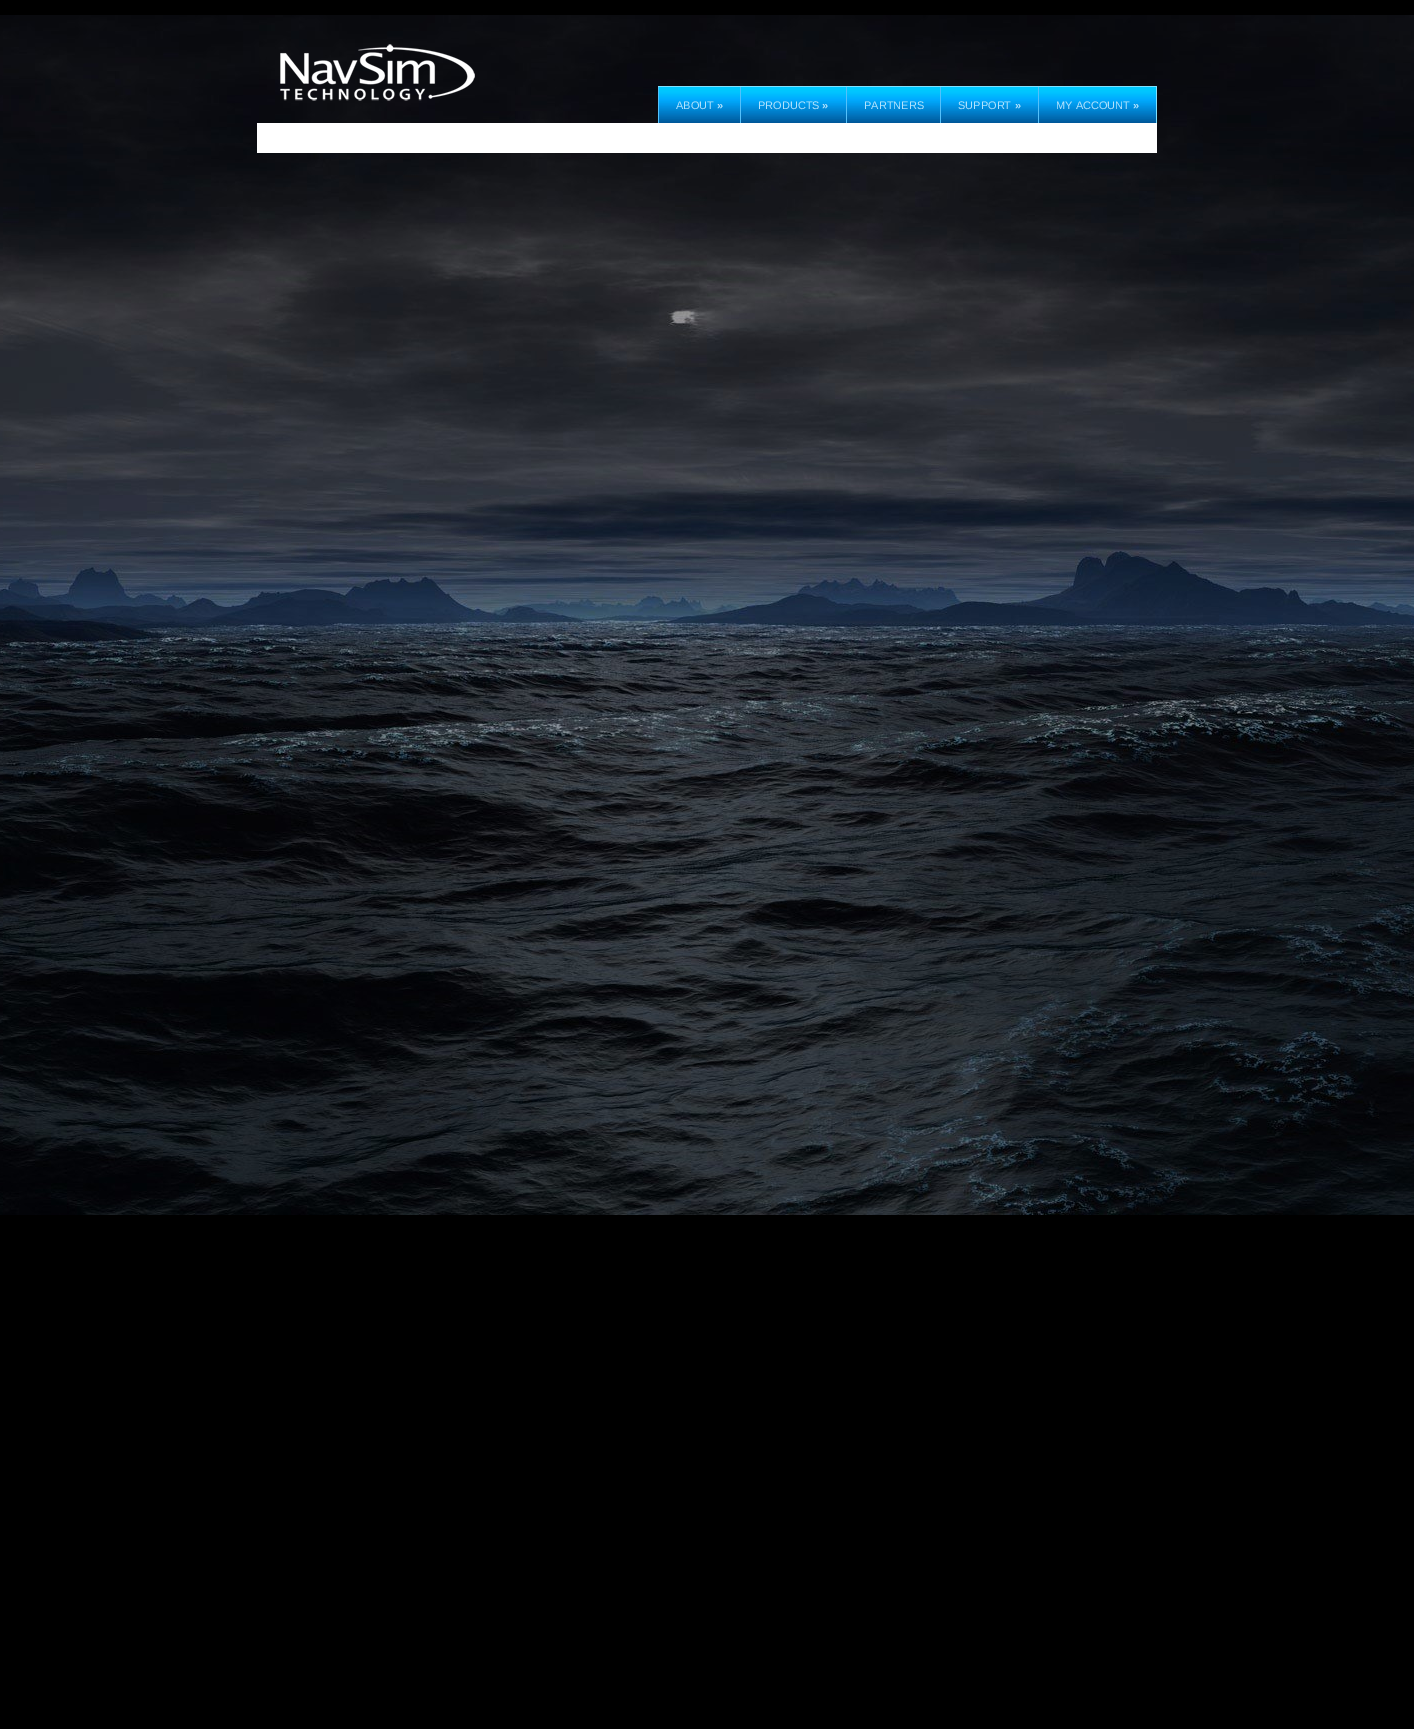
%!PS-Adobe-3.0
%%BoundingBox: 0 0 1414 1729
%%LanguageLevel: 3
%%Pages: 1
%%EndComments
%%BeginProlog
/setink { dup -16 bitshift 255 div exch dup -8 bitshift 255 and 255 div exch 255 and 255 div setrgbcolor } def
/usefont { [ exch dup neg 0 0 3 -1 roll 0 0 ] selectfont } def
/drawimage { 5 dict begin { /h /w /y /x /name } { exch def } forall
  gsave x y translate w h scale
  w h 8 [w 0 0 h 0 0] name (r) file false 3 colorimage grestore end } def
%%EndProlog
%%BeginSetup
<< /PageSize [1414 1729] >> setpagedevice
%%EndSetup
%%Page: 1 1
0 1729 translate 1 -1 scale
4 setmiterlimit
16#000000 setink
0 0 1414 1729 rectfill
(img1.raw) 0 153 1414 1062 drawimage
(img2.raw) 0 15 1414 138 drawimage
(img3.raw) 280 44 195 57 drawimage
(img4.raw) 659 87 497 36 drawimage
[
    [658 86 499 1 16#80E1FF]
    [1156 86 1 37 16#80E1FF]
    [658 87 1 36 16#54C1FB]
] { aload pop setink rectfill } forall
/LiberationSans-Regular 11 usefont
16#B3E3FD setink
676 109 moveto (ABOUT) show
/LiberationSans-Bold 11 usefont
717 109 moveto (») show
16#54C1FB setink
740 87 1 36 rectfill
/LiberationSans-Regular 11 usefont
16#B3E3FD setink
758 109 moveto (PRODUCTS) show
/LiberationSans-Bold 11 usefont
822 109 moveto (») show
16#54C1FB setink
846 87 1 36 rectfill
/LiberationSans-Regular 11 usefont
16#B3E3FD setink
864 109 moveto (PARTNERS) show
16#54C1FB setink
940 87 1 36 rectfill
16#B3E3FD setink
958 109 moveto (SUPPORT) show
/LiberationSans-Bold 11 usefont
1015 109 moveto (») show
16#54C1FB setink
1038 87 1 36 rectfill
/LiberationSans-Regular 11 usefont
16#B3E3FD setink
1056 109 moveto (MY ACCOUNT) show
/LiberationSans-Bold 11 usefont
1133 109 moveto (») show
16#FFFFFF setink
257 123 900 30 rectfill
showpage
%%EOF
